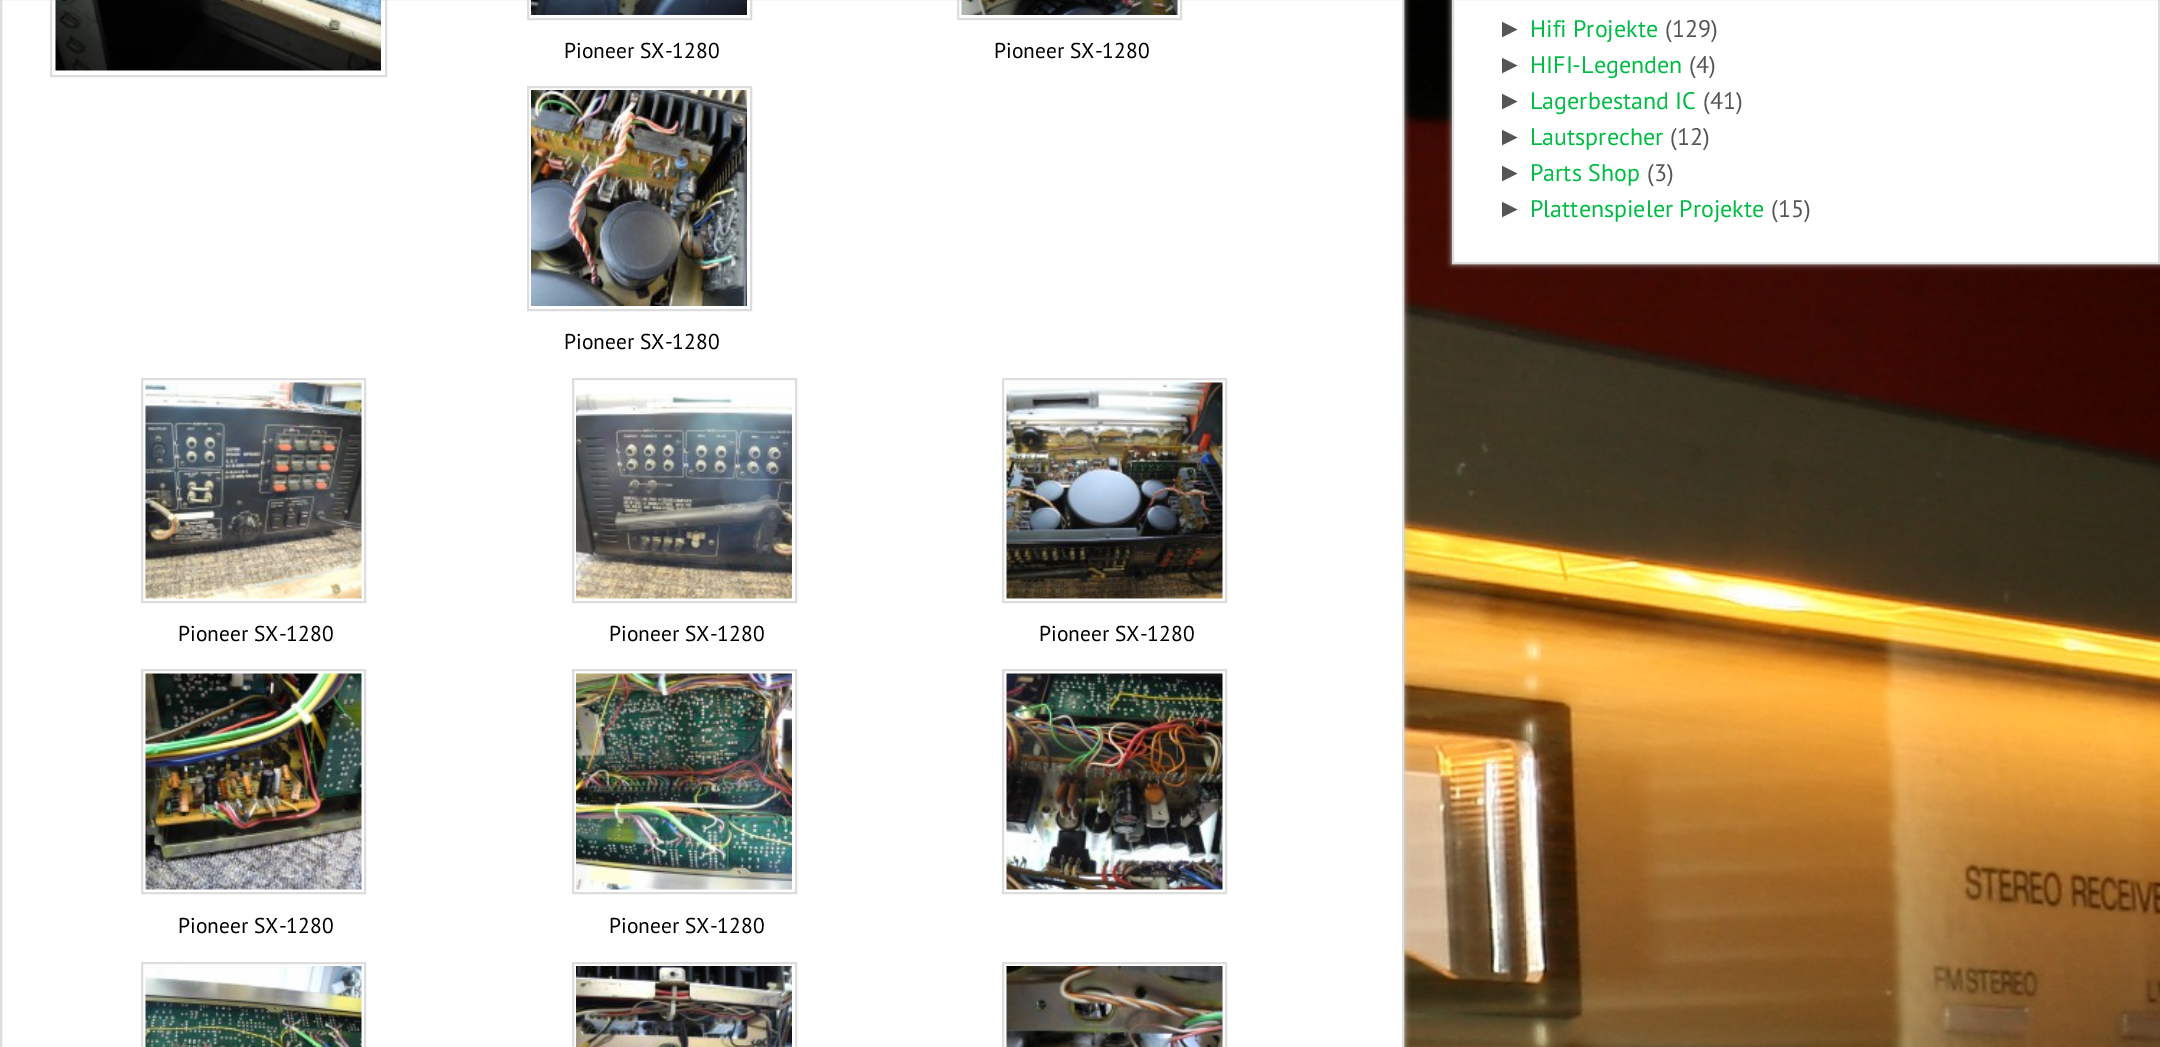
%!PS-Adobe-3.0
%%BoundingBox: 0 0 2160 1047
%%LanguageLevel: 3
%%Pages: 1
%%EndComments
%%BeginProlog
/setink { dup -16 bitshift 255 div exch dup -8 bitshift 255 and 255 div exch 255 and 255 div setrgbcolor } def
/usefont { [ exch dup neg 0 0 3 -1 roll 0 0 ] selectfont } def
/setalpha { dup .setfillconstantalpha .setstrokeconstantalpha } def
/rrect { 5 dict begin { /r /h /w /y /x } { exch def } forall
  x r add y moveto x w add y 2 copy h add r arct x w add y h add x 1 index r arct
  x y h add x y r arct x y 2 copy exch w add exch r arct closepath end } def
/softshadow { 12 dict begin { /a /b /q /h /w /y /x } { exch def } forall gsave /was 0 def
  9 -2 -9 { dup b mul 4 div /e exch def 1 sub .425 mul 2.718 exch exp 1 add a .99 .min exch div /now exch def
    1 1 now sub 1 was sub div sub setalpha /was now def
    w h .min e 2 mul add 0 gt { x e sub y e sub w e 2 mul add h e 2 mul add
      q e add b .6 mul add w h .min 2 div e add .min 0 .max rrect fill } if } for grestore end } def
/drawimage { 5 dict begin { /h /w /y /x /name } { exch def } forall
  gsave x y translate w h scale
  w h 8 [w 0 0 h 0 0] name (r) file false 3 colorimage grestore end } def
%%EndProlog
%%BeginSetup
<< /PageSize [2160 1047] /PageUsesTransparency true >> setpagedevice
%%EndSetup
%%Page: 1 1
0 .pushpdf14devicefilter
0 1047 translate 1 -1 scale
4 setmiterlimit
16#FFFFFF setink
0 0 2160 1047 rectfill
(img1.raw) 1404 0 756 1047 drawimage
16#CCCCCC setink
0 -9 1404 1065 0 3 1 softshadow
16#FFFFFF setink
1 -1 moveto 1403 -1 lineto 1403 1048 lineto 1 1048 lineto closepath gsave fill grestore
16#DDDDDD setink
2 setlinewidth
stroke
51 -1 335 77 rectstroke
(img2.raw) 55 0 326 71 drawimage
528 -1 223 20 rectstroke
(img3.raw) 531 0 216 15 drawimage
/PTSans-Regular 21.5 usefont
16#000000 setink
564 58 moveto (Pioneer SX-1280) show
16#DDDDDD setink
958 -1 223 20 rectstroke
(img4.raw) 961 0 217 15 drawimage
16#000000 setink
994 58 moveto (Pioneer SX-1280) show
16#DDDDDD setink
528 87 223 223 rectstroke
(img5.raw) 531 90 216 216 drawimage
16#000000 setink
564 349 moveto (Pioneer SX-1280) show
16#DDDDDD setink
142 379 223 223 rectstroke
(img6.raw) 145 382 217 217 drawimage
16#000000 setink
178 641 moveto (Pioneer SX-1280) show
16#DDDDDD setink
573 379 223 223 rectstroke
(img7.raw) 576 393 216 206 drawimage
16#000000 setink
609 641 moveto (Pioneer SX-1280) show
16#DDDDDD setink
1003 379 223 223 rectstroke
(img8.raw) 1006 382 217 217 drawimage
16#000000 setink
1039 641 moveto (Pioneer SX-1280) show
16#DDDDDD setink
1003 670 223 223 rectstroke
(img9.raw) 1006 673 217 217 drawimage
142 670 223 223 rectstroke
(img10.raw) 145 673 217 217 drawimage
16#000000 setink
178 933 moveto (Pioneer SX-1280) show
16#DDDDDD setink
573 670 223 223 rectstroke
(img11.raw) 576 673 216 217 drawimage
16#000000 setink
609 933 moveto (Pioneer SX-1280) show
16#DDDDDD setink
142 963 223 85 rectstroke
(img12.raw) 145 966 217 81 drawimage
573 963 223 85 rectstroke
(img13.raw) 576 966 216 81 drawimage
1003 963 223 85 rectstroke
(img14.raw) 1006 966 217 81 drawimage
16#CCCCCC setink
1452 -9 708 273 0 3 1 softshadow
16#FFFFFF setink
1453 -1 moveto 2159 -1 lineto 2159 263 lineto 1453 263 lineto closepath gsave fill grestore
16#DDDDDD setink
stroke
/LiberationSans-Regular 26 usefont
16#555555 setink
1497 37 moveto (►) show
/PTSans-Regular 24 usefont
16#00BC45 setink
1530 37 moveto (Hifi Projekte) show
16#555555 setink
1665 37 moveto (\(129\)) show
/LiberationSans-Regular 26 usefont
1497 73 moveto (►) show
/PTSans-Regular 24 usefont
16#00BC45 setink
1530 73 moveto (HIFI-Legenden) show
16#555555 setink
1689 73 moveto (\(4\)) show
/LiberationSans-Regular 26 usefont
1497 109 moveto (►) show
/PTSans-Regular 24 usefont
16#00BC45 setink
1530 109 moveto (Lagerbestand IC) show
16#555555 setink
1703 109 moveto (\(41\)) show
/LiberationSans-Regular 26 usefont
1497 145 moveto (►) show
/PTSans-Regular 24 usefont
16#00BC45 setink
1530 145 moveto (Lautsprecher) show
16#555555 setink
1670 145 moveto (\(12\)) show
/LiberationSans-Regular 26 usefont
1497 181 moveto (►) show
/PTSans-Regular 24 usefont
16#00BC45 setink
1530 181 moveto (Parts Shop) show
16#555555 setink
1647 181 moveto (\(3\)) show
/LiberationSans-Regular 26 usefont
1497 217 moveto (►) show
/PTSans-Regular 24 usefont
16#00BC45 setink
1530 217 moveto (Plattenspieler Projekte) show
16#555555 setink
1771 217 moveto (\(15\)) show
.poppdf14devicefilter showpage
%%EOF
